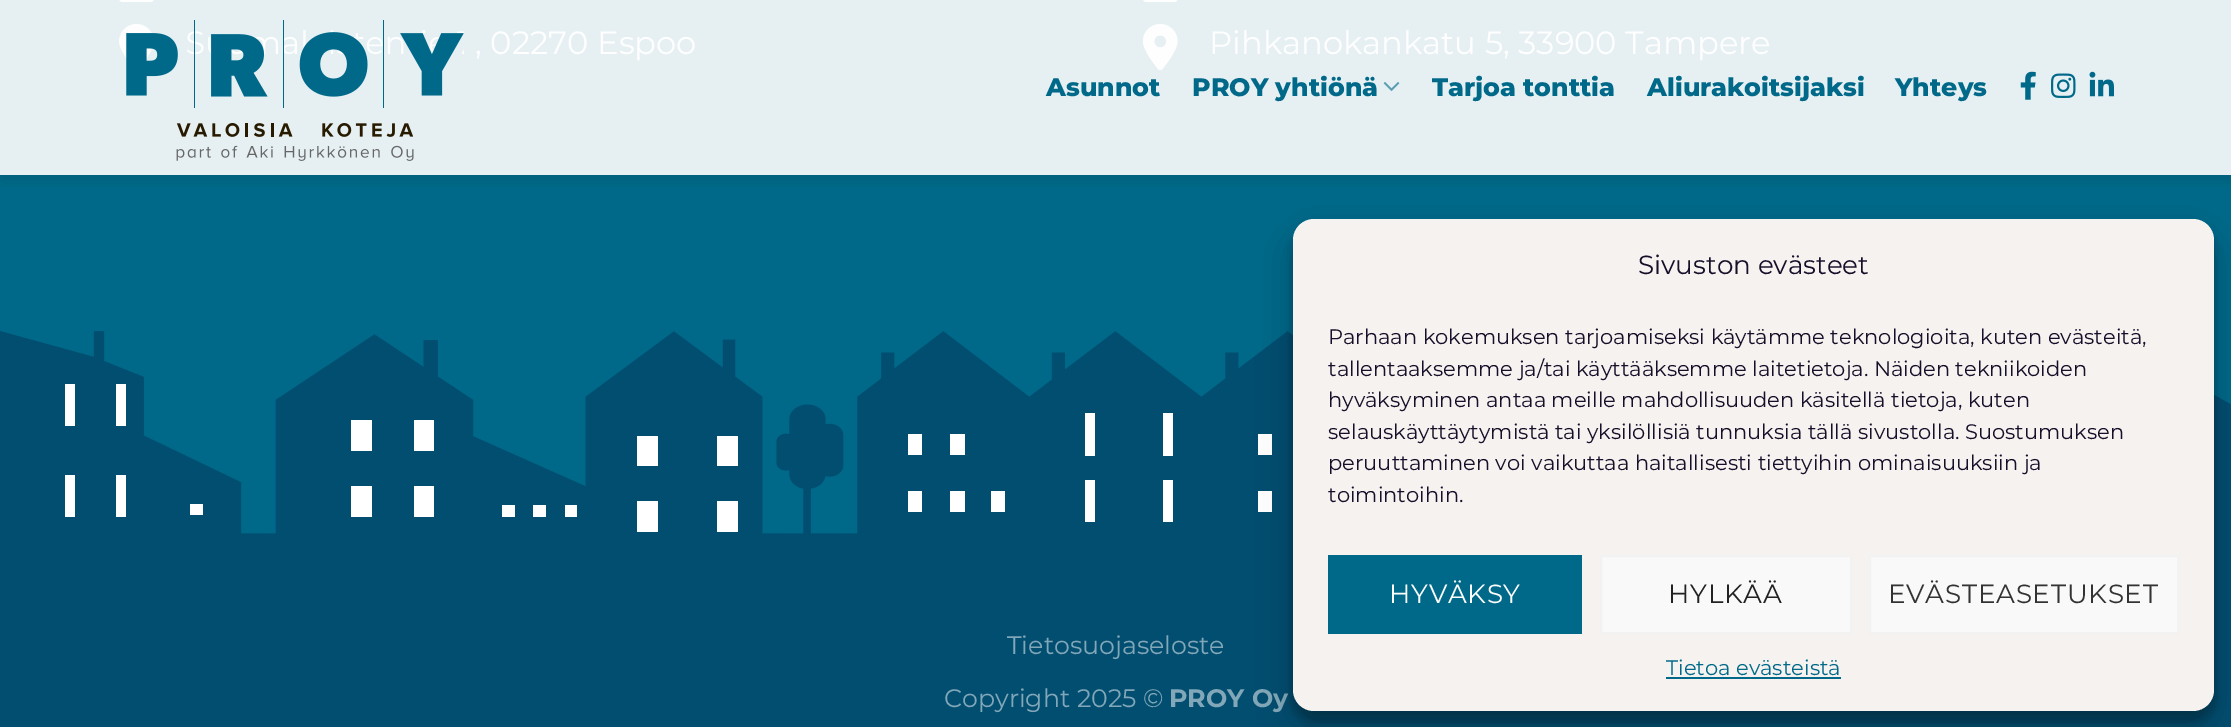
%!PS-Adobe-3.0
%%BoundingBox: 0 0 2231 727
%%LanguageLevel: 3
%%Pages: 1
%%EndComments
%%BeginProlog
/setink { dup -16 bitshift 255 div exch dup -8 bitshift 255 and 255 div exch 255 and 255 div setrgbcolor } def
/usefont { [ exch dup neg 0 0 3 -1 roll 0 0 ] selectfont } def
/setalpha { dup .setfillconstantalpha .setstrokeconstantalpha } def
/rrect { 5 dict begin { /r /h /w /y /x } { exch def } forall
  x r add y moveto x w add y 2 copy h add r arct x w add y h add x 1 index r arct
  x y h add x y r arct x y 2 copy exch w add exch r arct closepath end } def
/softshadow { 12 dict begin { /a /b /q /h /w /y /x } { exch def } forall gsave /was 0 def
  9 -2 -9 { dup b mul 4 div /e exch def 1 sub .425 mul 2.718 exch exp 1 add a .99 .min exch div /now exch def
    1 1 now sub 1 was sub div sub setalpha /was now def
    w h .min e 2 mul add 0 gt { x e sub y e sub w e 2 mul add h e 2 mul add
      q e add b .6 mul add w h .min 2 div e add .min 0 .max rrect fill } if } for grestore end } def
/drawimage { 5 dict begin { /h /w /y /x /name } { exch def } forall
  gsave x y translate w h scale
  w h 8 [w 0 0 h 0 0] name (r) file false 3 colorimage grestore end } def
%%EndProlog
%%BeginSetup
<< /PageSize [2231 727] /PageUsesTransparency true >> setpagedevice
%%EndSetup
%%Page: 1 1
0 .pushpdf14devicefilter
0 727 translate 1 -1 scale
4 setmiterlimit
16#024E70 setink
0 0 2231 727 rectfill
16#006989 setink
0 175 2231 420 rectfill
16#E6F0F3 setink
0 0 2231 175 rectfill
(img1.raw) 119 0 35 3 drawimage
(img2.raw) 119 23 34 37 drawimage
/Montserrat-Regular 32.25 usefont
16#FEFEFE setink
[
    [(a) 281 54]
    [(en) 365 54]
    [(, 02270 Espoo) 475 54]
] { aload pop moveto show } forall
(img3.raw) 1143 0 35 3 drawimage
(img4.raw) 1143 23 35 47 drawimage
1209 54 moveto (Pihkanokankatu 5, 33900 Tampere) show
(img5.raw) 0 331 2231 264 drawimage
/Montserrat-Regular 25.25 usefont
16#81A7B8 setink
1007 654 moveto (Tietosuojaseloste) show
944 707 moveto (Copyright 2025 ©) show
/Montserrat-Bold 25.25 usefont
1169 707 moveto (PROY Oy) show
gsave
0 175 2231 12 rectclip
16#000000 setink
2 2 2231 175 0 9 0.15 softshadow
grestore
(img6.raw) 126 20 338 141 drawimage
/Montserrat-ExtraBold 25.25 usefont
16#006989 setink
1046 96 moveto (Asunnot) show
1192 96 moveto (PROY yhtiönä) show
(img7.raw) 1383 82 17 9 drawimage
[
    [(Tarjoa tonttia) 1432 96]
    [(Aliurakoitsijaksi) 1647 96]
    [(Yhteys) 1895 96]
] { aload pop moveto show } forall
(img8.raw) 2020 71 16 29 drawimage
(img9.raw) 2051 73 25 25 drawimage
(img10.raw) 2089 71 25 26 drawimage
16#000000 setink
1293 229 921 492 21 5 0.23 softshadow
1293 236 921 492 21 17.5 0.19 softshadow
16#F5F2EF setink
1293 219 921 492 21 rrect fill
/Montserrat-Regular 26.25 usefont
16#160F29 setink
1638 274 moveto (Sivuston evästeet) show
/Montserrat-Regular 21 usefont
[
    [(Parhaan kokemuksen tarjoamiseksi käytämme teknologioita, kuten evästeitä,) 1328 344]
    [(tallentaaksemme ja/tai käyttääksemme laitetietoja. Näiden tekniikoiden) 1328 376]
    [(hyväksyminen antaa meille mahdollisuuden käsitellä tietoja, kuten) 1328 407]
    [(selauskäyttäytymistä tai yksilöllisiä tunnuksia tällä sivustolla. Suostumuksen) 1328 439]
    [(peruuttaminen voi vaikuttaa haitallisesti tiettyihin ominaisuuksiin ja) 1328 470]
    [(toimintoihin.) 1328 502]
] { aload pop moveto show } forall
16#006989 setink
1328 555 254 79 rectfill
/Montserrat-Regular 26.25 usefont
16#FEFEFE setink
1389 603 moveto 0.75 0 (HYVÄKSY) ashow
16#F9F9F9 setink
1601 556 moveto 1851 556 lineto 1851 633 lineto 1601 633 lineto closepath gsave fill grestore
16#F2F2F2 setink
2 setlinewidth
stroke
16#222222 setink
1668 603 moveto 0.75 0 (HYLKÄÄ) ashow
16#F9F9F9 setink
1870 556 moveto 2178 556 lineto 2178 633 lineto 1870 633 lineto closepath gsave fill grestore
16#F2F2F2 setink
stroke
16#333333 setink
1888 603 moveto 0.75 0 (EVÄSTEASETUKSET) ashow
/Montserrat-Regular 21 usefont
16#006989 setink
1666 675 moveto (Tietoa evästeistä) show
1666 677 175 2 rectfill
.poppdf14devicefilter showpage
%%EOF
